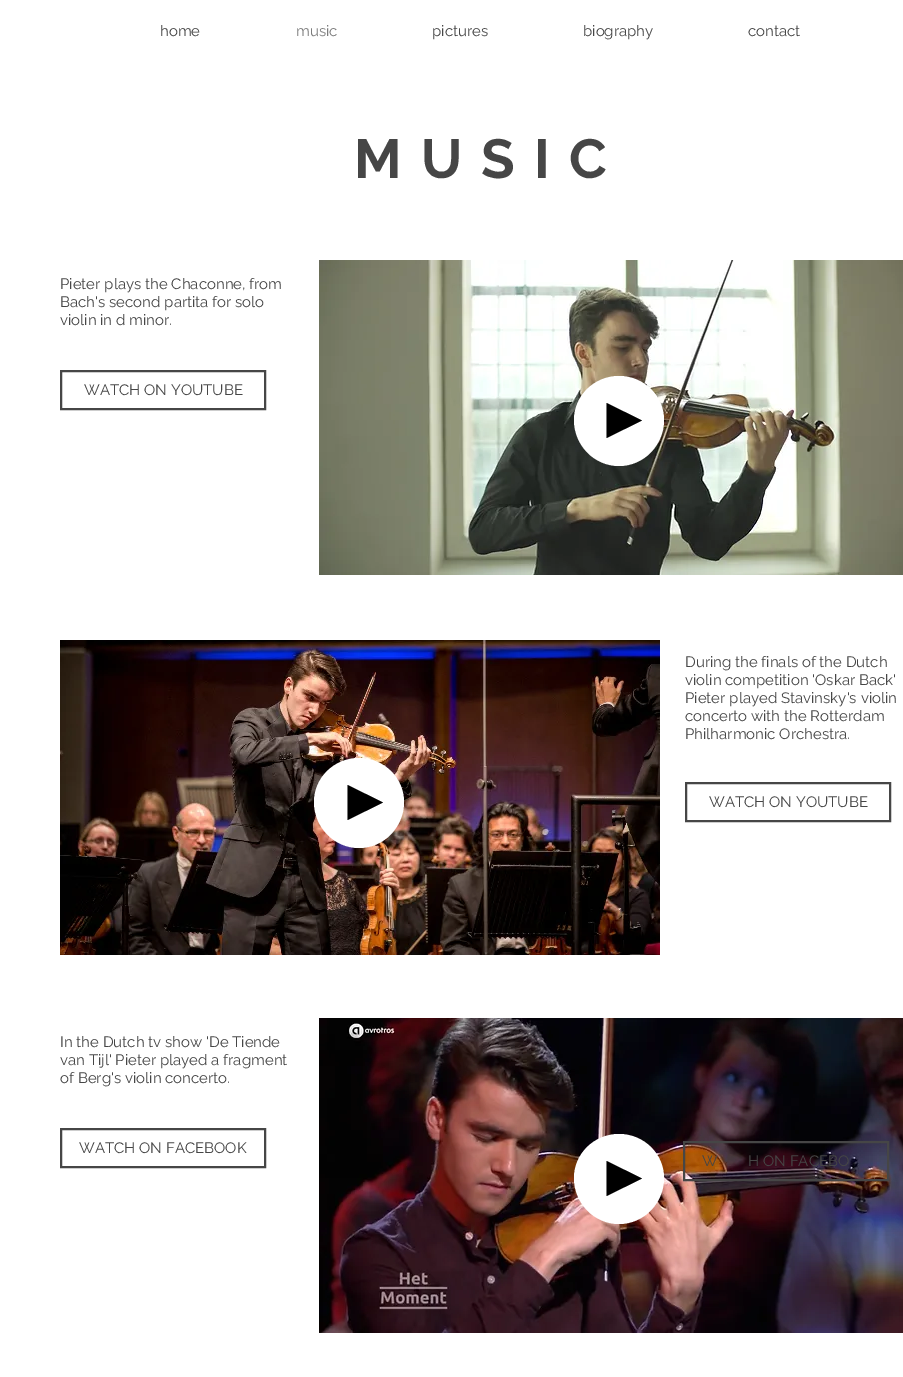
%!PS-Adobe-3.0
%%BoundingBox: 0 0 903 1377
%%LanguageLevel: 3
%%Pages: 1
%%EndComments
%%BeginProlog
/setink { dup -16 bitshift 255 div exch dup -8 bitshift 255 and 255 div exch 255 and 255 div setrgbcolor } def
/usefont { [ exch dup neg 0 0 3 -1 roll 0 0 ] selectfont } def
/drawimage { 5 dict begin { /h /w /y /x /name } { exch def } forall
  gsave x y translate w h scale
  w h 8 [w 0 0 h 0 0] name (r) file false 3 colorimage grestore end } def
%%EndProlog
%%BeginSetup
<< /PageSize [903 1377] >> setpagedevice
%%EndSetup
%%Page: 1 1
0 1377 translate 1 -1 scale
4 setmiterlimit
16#FFFFFF setink
0 0 903 1377 rectfill
/Raleway-Regular 15 usefont
16#464646 setink
160 36 moveto (home) show
16#7C7C7C setink
296 36 moveto (music) show
16#464646 setink
[
    [(pictures) 432 36]
    [(biography) 583 36]
    [(contact) 748 36]
] { aload pop moveto show } forall
/Raleway-Bold 55 usefont
354 178 moveto 19.25 0 (MUSIC) ashow
/Raleway-Regular 15 usefont
[
    [(Pieter plays the Chaconne, from) 60 289]
    [(Bach's second partita for solo) 60 307]
    [(violin in d minor.) 60 325]
] { aload pop moveto show } forall
(img1.raw) 319 260 584 315 drawimage
2 setlinewidth
61 371 204 38 rectstroke
84 395 moveto (WATCH ON YOUTUBE) show
16#FFFFFF setink
664 420 moveto 664 445 644 466 619 466 curveto 594 466 574 445 574 420 curveto 574 396 594 376 619 376 curveto 644 376 664 396 664 420 curveto closepath fill
16#000000 setink
606.5 403 moveto 642 420.5 lineto 606.5 438 lineto closepath fill
(img2.raw) 60 640 600 315 drawimage
16#464646 setink
[
    [(During the finals of the Dutch) 685 667]
    [(violin competition 'Oskar Back') 685 685]
    [(Pieter played Stavinsky's violin) 685 703]
    [(concerto with the Rotterdam) 685 721]
    [(Philharmonic Orchestra.) 685 739]
] { aload pop moveto show } forall
16#FFFFFF setink
404 802 moveto 404 827 384 848 359 848 curveto 334 848 314 827 314 802 curveto 314 778 334 758 359 758 curveto 384 758 404 778 404 802 curveto closepath fill
16#000000 setink
347.5 785 moveto 383 802.5 lineto 347.5 820 lineto closepath fill
16#464646 setink
686 783 204 38 rectstroke
[
    [(WATCH ON YOUTUBE) 709 807]
    [(In the Dutch tv show 'De Tiende) 60 1047]
    [(van Tijl' Pieter played a fragment) 60 1065]
    [(of Berg's violin concerto.) 60 1083]
] { aload pop moveto show } forall
(img3.raw) 319 1018 584 315 drawimage
61 1129 204 38 rectstroke
79 1153 moveto (WATCH ON FACEBOOK) show
16#FFFFFF setink
664 1178 moveto 664 1203 644 1224 619 1224 curveto 594 1224 574 1203 574 1178 curveto 574 1154 594 1134 619 1134 curveto 644 1134 664 1154 664 1178 curveto closepath fill
16#000000 setink
606.5 1161 moveto 642 1178.5 lineto 606.5 1196 lineto closepath fill
16#464646 setink
684 1142 204 38 rectstroke
702 1166 moveto (W) show
748 1166 moveto (H ON FACEBO) show
showpage
%%EOF
